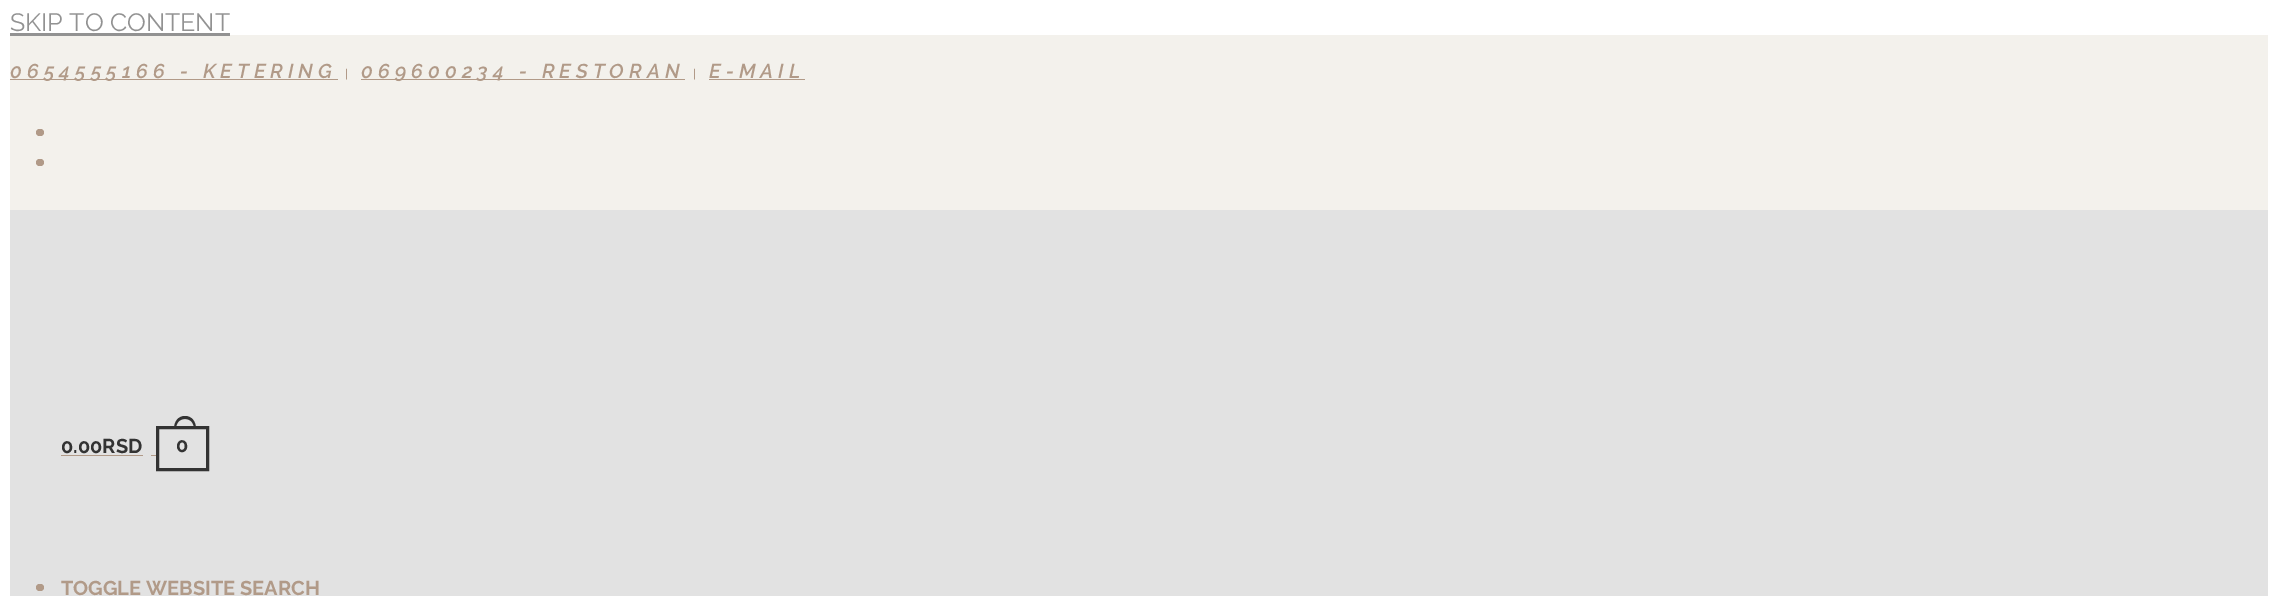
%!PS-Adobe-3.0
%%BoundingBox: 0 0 2277 596
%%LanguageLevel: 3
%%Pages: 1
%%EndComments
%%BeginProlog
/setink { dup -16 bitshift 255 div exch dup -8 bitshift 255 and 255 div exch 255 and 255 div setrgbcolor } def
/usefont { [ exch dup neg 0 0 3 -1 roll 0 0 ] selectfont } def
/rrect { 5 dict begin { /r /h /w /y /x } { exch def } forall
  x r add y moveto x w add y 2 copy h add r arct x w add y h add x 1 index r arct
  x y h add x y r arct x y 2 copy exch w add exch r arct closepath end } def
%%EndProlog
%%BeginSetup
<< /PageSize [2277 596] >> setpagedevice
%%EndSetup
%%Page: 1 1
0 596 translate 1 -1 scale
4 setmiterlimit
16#FFFFFF setink
0 0 2277 596 rectfill
/Raleway-Regular 25 usefont
16#929292 setink
10 31 moveto (SKIP TO CONTENT) show
[
    [10 35 2258 175 16#F3F1EC]
    [10 33 220 3 16#929292]
    [10 79 328 1 16#B19A88]
] { aload pop setink rectfill } forall
/Raleway-SemiBoldItalic 20 usefont
10 78 moveto 5 0 (0654555166 - KETERING) ashow
/Raleway-SemiBold 12 usefont
345 78 moveto 5 0 (|) ashow
361 79 324 1 rectfill
/Raleway-SemiBoldItalic 20 usefont
361 78 moveto 5 0 (069600234 - RESTORAN) ashow
/Raleway-SemiBold 12 usefont
693 78 moveto 5 0 (|) ashow
/Raleway-SemiBoldItalic 20 usefont
709 78 moveto 5 0 (E-MAIL) ashow
709 79 96 1 rectfill
36 129 8 7 3.5 rrect fill
36 159 8 7 3.5 rrect fill
16#E2E2E2 setink
10 210 2258 386 rectfill
/Raleway-Bold 20 usefont
16#333333 setink
61 453 moveto (0.00RSD) show
16#B19A88 setink
61 455 82 1 rectfill
16#333333 setink
3 setlinewidth
157.5 427.5 50 42 rectstroke
185 416 moveto 192 416 196 422 196 429 curveto 174 429 lineto 174 422 178 416 185 416 curveto closepath 185 419 moveto 191 419 194 423.5 194 429 curveto 176 429 lineto 176 423.5 179 419 185 419 curveto closepath eofill
176 452 moveto (0) show
16#B19A88 setink
151 455 5 1 rectfill
36 584 8 7 3.5 rrect fill
61 595 moveto (TOGGLE WEBSITE SEARCH) show
showpage
%%EOF
